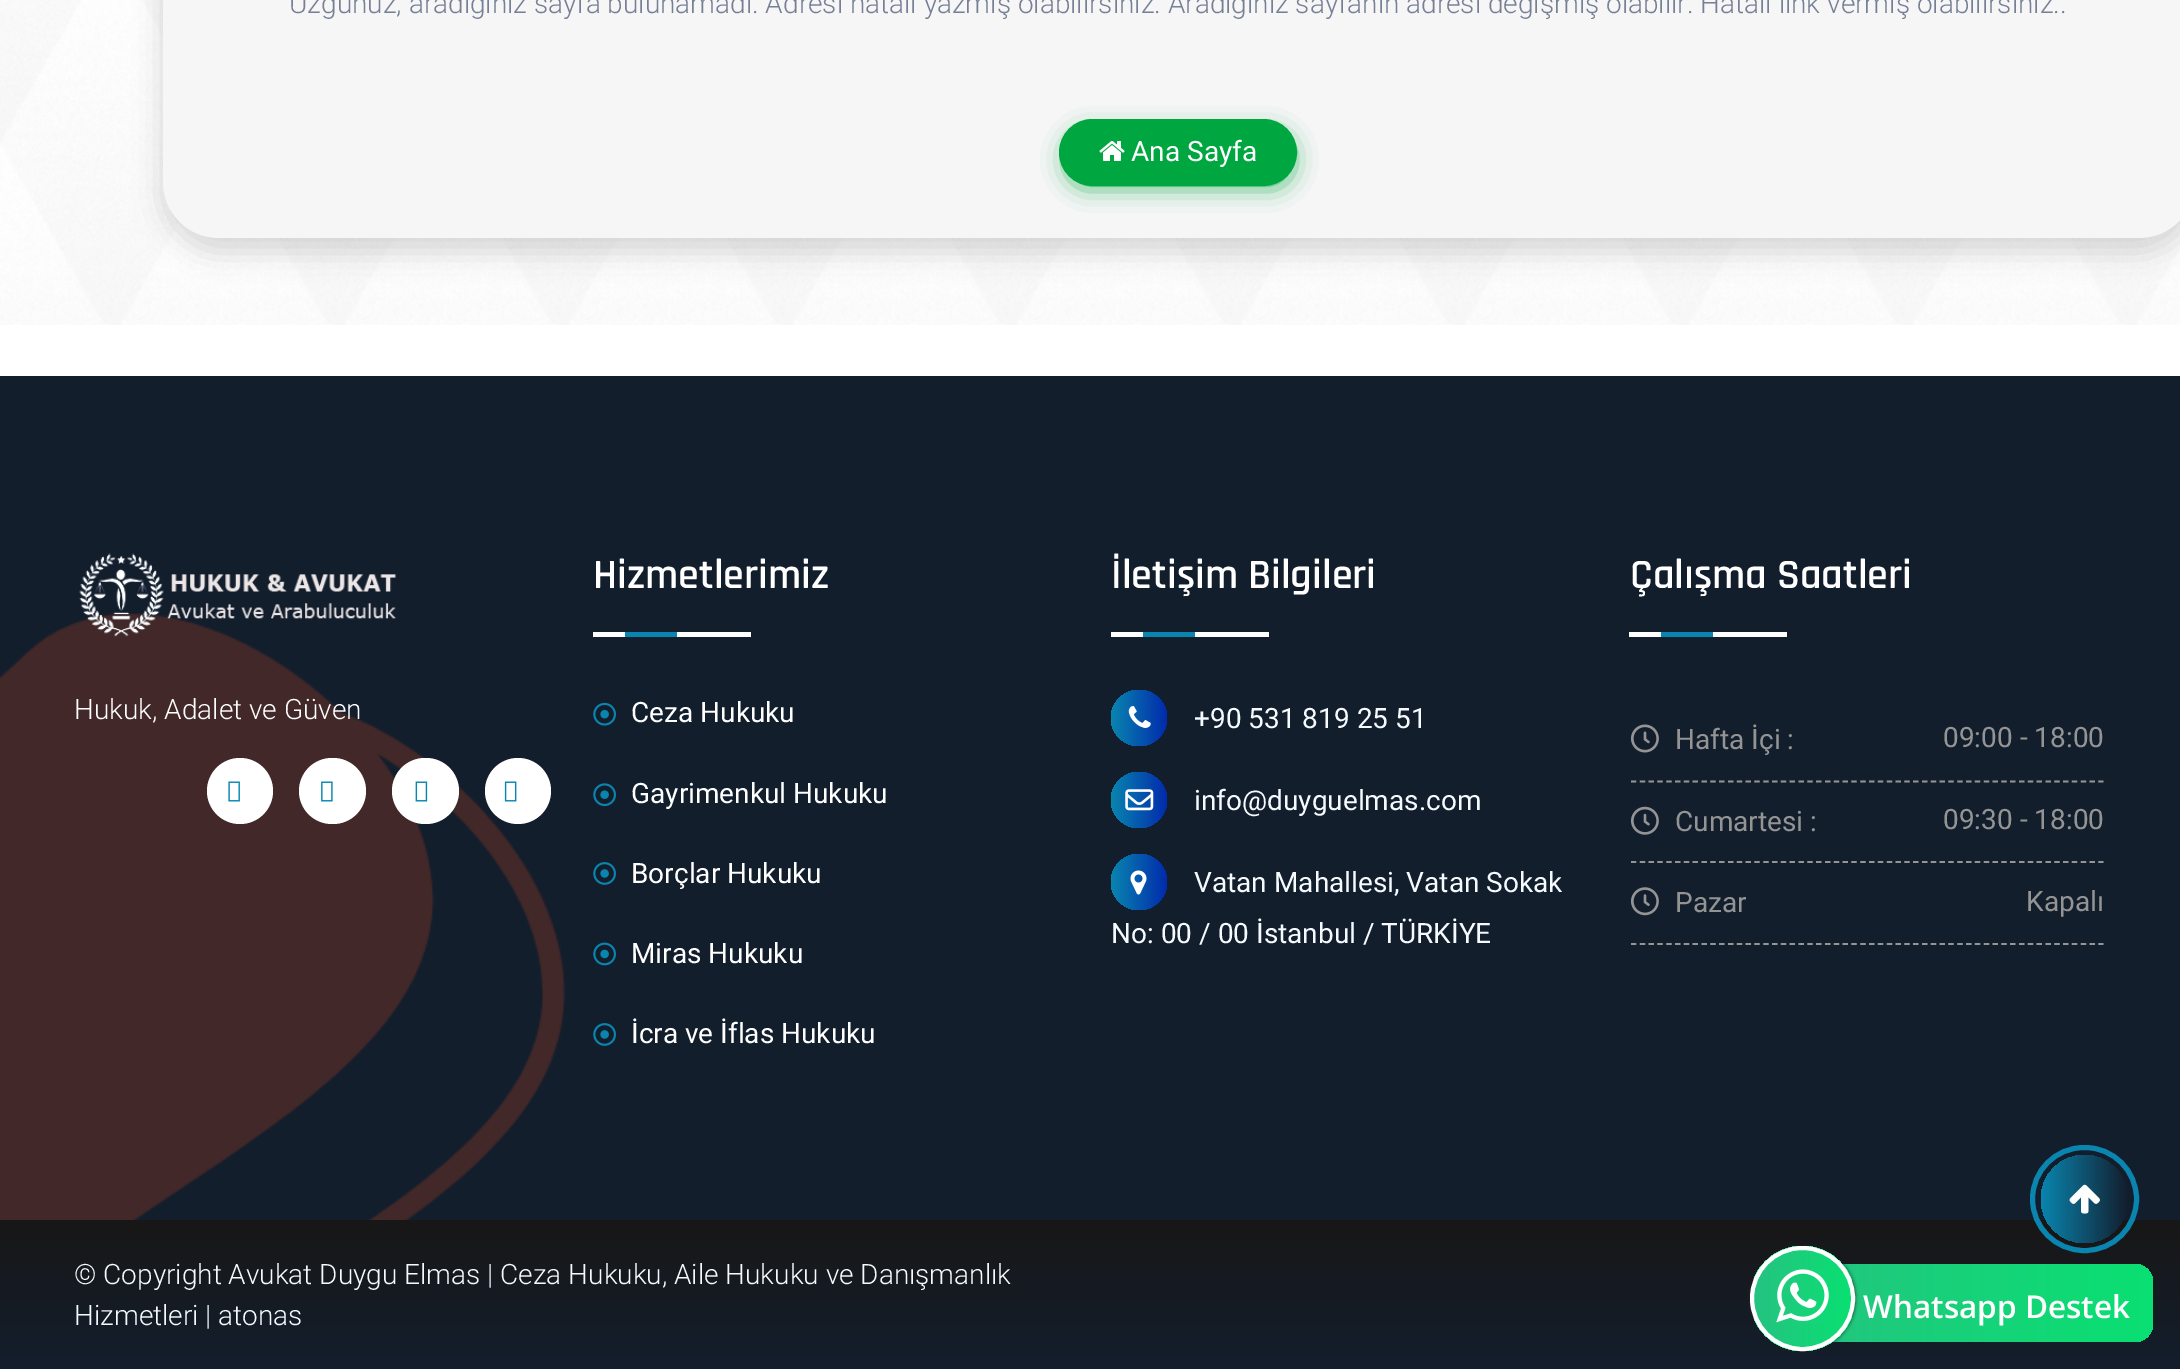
%!PS-Adobe-3.0
%%BoundingBox: 0 0 2180 1369
%%LanguageLevel: 3
%%Pages: 1
%%EndComments
%%BeginProlog
/setink { dup -16 bitshift 255 div exch dup -8 bitshift 255 and 255 div exch 255 and 255 div setrgbcolor } def
/usefont { [ exch dup neg 0 0 3 -1 roll 0 0 ] selectfont } def
/setalpha { dup .setfillconstantalpha .setstrokeconstantalpha } def
/disc { newpath 0 360 arc closepath } def
/rrect { 5 dict begin { /r /h /w /y /x } { exch def } forall
  x r add y moveto x w add y 2 copy h add r arct x w add y h add x 1 index r arct
  x y h add x y r arct x y 2 copy exch w add exch r arct closepath end } def
/softshadow { 12 dict begin { /a /b /q /h /w /y /x } { exch def } forall gsave /was 0 def
  9 -2 -9 { dup b mul 4 div /e exch def 1 sub .425 mul 2.718 exch exp 1 add a .99 .min exch div /now exch def
    1 1 now sub 1 was sub div sub setalpha /was now def
    w h .min e 2 mul add 0 gt { x e sub y e sub w e 2 mul add h e 2 mul add
      q e add b .6 mul add w h .min 2 div e add .min 0 .max rrect fill } if } for grestore end } def
/drawimage { 5 dict begin { /h /w /y /x /name } { exch def } forall
  gsave x y translate w h scale
  w h 8 [w 0 0 h 0 0] name (r) file false 3 colorimage grestore end } def
%%EndProlog
%%BeginSetup
<< /PageSize [2180 1369] /PageUsesTransparency true >> setpagedevice
%%EndSetup
%%Page: 1 1
0 .pushpdf14devicefilter
0 1369 translate 1 -1 scale
4 setmiterlimit
16#FFFFFF setink
0 0 2180 1369 rectfill
(img1.raw) 0 0 2180 325 drawimage
16#000000 setink
163 -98 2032 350 56 14 0.15 softshadow
16#F7F6F7 setink
163 -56 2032 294 56 rrect fill
/Roboto-Light 28 usefont
16#757F95 setink
289 13 moveto (Üzgünüz, aradığınız sayfa bulunamadı. Adresi hatalı yazmış olabilirsiniz. Aradığınız sayfanın adresi değişmiş olabilir. Hatalı link vermiş olabilirsiniz..) show
16#00A63F setink
1069 135 221 49 24.5 13 1 softshadow
1060 120 236 65 32.5 rrect gsave fill grestore
2 setlinewidth
stroke
(img2.raw) 1099 141 26 20 drawimage
/Roboto-Regular 28 usefont
16#FFFFFF setink
1131 161 moveto (Ana Sayfa) show
16#131E2D setink
0 376 2180 844 rectfill
(img18.raw) 0 613 566 607 drawimage
(img3.raw) 79 553 317 84 drawimage
/Roboto-Light 28 usefont
16#FFFFFF setink
74 719 moveto (Hukuk, Adalet ve Güven) show
240 791 33 disc fill
(img4.raw) 228 781 12 21 drawimage
299 758 67 66 33 rrect fill
(img5.raw) 321 781 12 21 drawimage
392 758 67 66 33 rrect fill
(img6.raw) 415 781 13 21 drawimage
518 791 33 disc fill
(img7.raw) 504 781 13 21 drawimage
/Rajdhani-SemiBold 42 usefont
593 588 moveto (Hizmetlerimiz) show
593 632 158 5 rectfill
16#0985AF setink
625 632 52 5 rectfill
(img8.raw) 593 702 23 24 drawimage
/Roboto-Regular 28 usefont
16#FFFFFF setink
631 722 moveto (Ceza Hukuku) show
(img9.raw) 593 783 23 24 drawimage
631 803 moveto (Gayrimenkul Hukuku) show
(img10.raw) 593 862 23 23 drawimage
631 883 moveto (Borçlar Hukuku) show
(img11.raw) 593 942 23 24 drawimage
631 963 moveto (Miras Hukuku) show
(img10.raw) 593 1023 23 23 drawimage
631 1043 moveto (İcra ve İflas Hukuku) show
/Rajdhani-SemiBold 42 usefont
1111 588 moveto (İletişim Bilgileri) show
1111 632 158 5 rectfill
16#0985AF setink
1143 632 52 5 rectfill
gsave 1139 718 28 disc clip newpath
<< /ShadingType 2 /ColorSpace /DeviceRGB /Coords [1111 718 1167 718] /Extend [true true] /Function << /FunctionType 2 /Domain [0 1] /C0 [0.035 0.522 0.686] /C1 [0.008 0.165 0.675] /N 1 >> >> shfill grestore
(img12.raw) 1128 706 23 22 drawimage
/Roboto-Regular 28 usefont
16#F5FAFF setink
1194 728 moveto (+90 531 819 25 51) show
gsave 1139 800 28 disc clip newpath
<< /ShadingType 2 /ColorSpace /DeviceRGB /Coords [1111 800 1167 800] /Extend [true true] /Function << /FunctionType 2 /Domain [0 1] /C0 [0.035 0.522 0.686] /C1 [0.008 0.165 0.675] /N 1 >> >> shfill grestore
(img13.raw) 1125 789 29 22 drawimage
1194 810 moveto (info@duyguelmas.com) show
gsave 1139 882 28 disc clip newpath
<< /ShadingType 2 /ColorSpace /DeviceRGB /Coords [1111 882 1167 882] /Extend [true true] /Function << /FunctionType 2 /Domain [0 1] /C0 [0.035 0.522 0.686] /C1 [0.008 0.165 0.675] /N 1 >> >> shfill grestore
(img14.raw) 1130 870 17 25 drawimage
1194 892 moveto (Vatan Mahallesi, Vatan Sokak) show
1111 943 moveto (No: 00 / 00 İstanbul / TÜRKİYE) show
/Rajdhani-SemiBold 42 usefont
16#FFFFFF setink
1630 588 moveto (Çalışma Saatleri) show
1629 632 158 5 rectfill
16#0985AF setink
1661 632 52 5 rectfill
16#949494 setink
1.8 setlinewidth
[5.25 3.57] 0 setdash
1631 781.5 moveto 2103.5 781.5 lineto stroke
(img15.raw) 1630 724 29 29 drawimage
/Roboto-Regular 28 usefont
1675 749 moveto (Hafta İçi :) show
1943 747 moveto (09:00 - 18:00) show
1631 862 moveto 2103.5 862 lineto stroke
(img16.raw) 1630 806 29 29 drawimage
1675 831 moveto (Cumartesi :) show
1943 829 moveto (09:30 - 18:00) show
1631 944 moveto 2103.5 944 lineto stroke
(img17.raw) 1630 887 29 29 drawimage
1675 912 moveto (Pazar) show
2026 911 moveto (Kapalı) show
gsave 0 1220 moveto 2180 1220 lineto 2180 1369 lineto 0 1369 lineto closepath clip newpath
<< /ShadingType 2 /ColorSpace /DeviceRGB /Coords [1090 1220 1090 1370] /Extend [true true] /Function << /FunctionType 2 /Domain [0 1] /C0 [0.094 0.09 0.09] /C1 [0.075 0.118 0.176] /N 1 >> >> shfill grestore
/Roboto-Light 28 usefont
16#F5FAFF setink
74 1284 moveto (© Copyright Avukat Duygu Elmas | Ceza Hukuku, Aile Hukuku ve Danışmanlık) show
74 1325 moveto (Hizmetleri | atonas) show
gsave 2041 1155 87 88 43.5 rrect clip newpath
<< /ShadingType 2 /ColorSpace /DeviceRGB /Coords [2041 1199 2128 1199] /Extend [true true] /Function << /FunctionType 2 /Domain [0 1] /C0 [0.035 0.522 0.686] /C1 [0.075 0.118 0.176] /N 1 >> >> shfill grestore
(img19.raw) 2069 1184 31 30 drawimage
16#0985AF setink
5 setlinewidth
[] 0 setdash
2032.5 1147.5 104 103 51.5 rrect stroke
gsave 1766 1264 387 78 18 rrect clip newpath
<< /ShadingType 2 /ColorSpace /DeviceRGB /Coords [1766 1303 2153 1303] /Extend [true true] /Function << /FunctionType 2 /Domain [0 1] /C0 [0.149 0.761 0.506] /C1 [0.035 0.878 0.447] /N 1 >> >> shfill grestore
16#222222 setink
1750 1246 105 105 52.5 2 1 softshadow
gsave
1750 1246 105 105 52.5 rrect clip newpath
gsave 1754 1246 moveto 1852 1246 lineto 1852 1351 lineto 1754 1351 lineto closepath clip newpath
<< /ShadingType 2 /ColorSpace /DeviceRGB /Coords [1754 1299 1852 1299] /Extend [true true] /Function << /FunctionType 2 /Domain [0 1] /C0 [0.149 0.761 0.506] /C1 [0.035 0.878 0.447] /N 1 >> >> shfill grestore
grestore
16#FFFFFF setink
4 setlinewidth
1802.5 1298.5 50.5 disc stroke
(img20.raw) 1776 1269 53 54 drawimage
/OpenSans-SemiBold 31.5 usefont
1863 1318 moveto (Whatsapp Destek) show
.poppdf14devicefilter showpage
%%EOF
